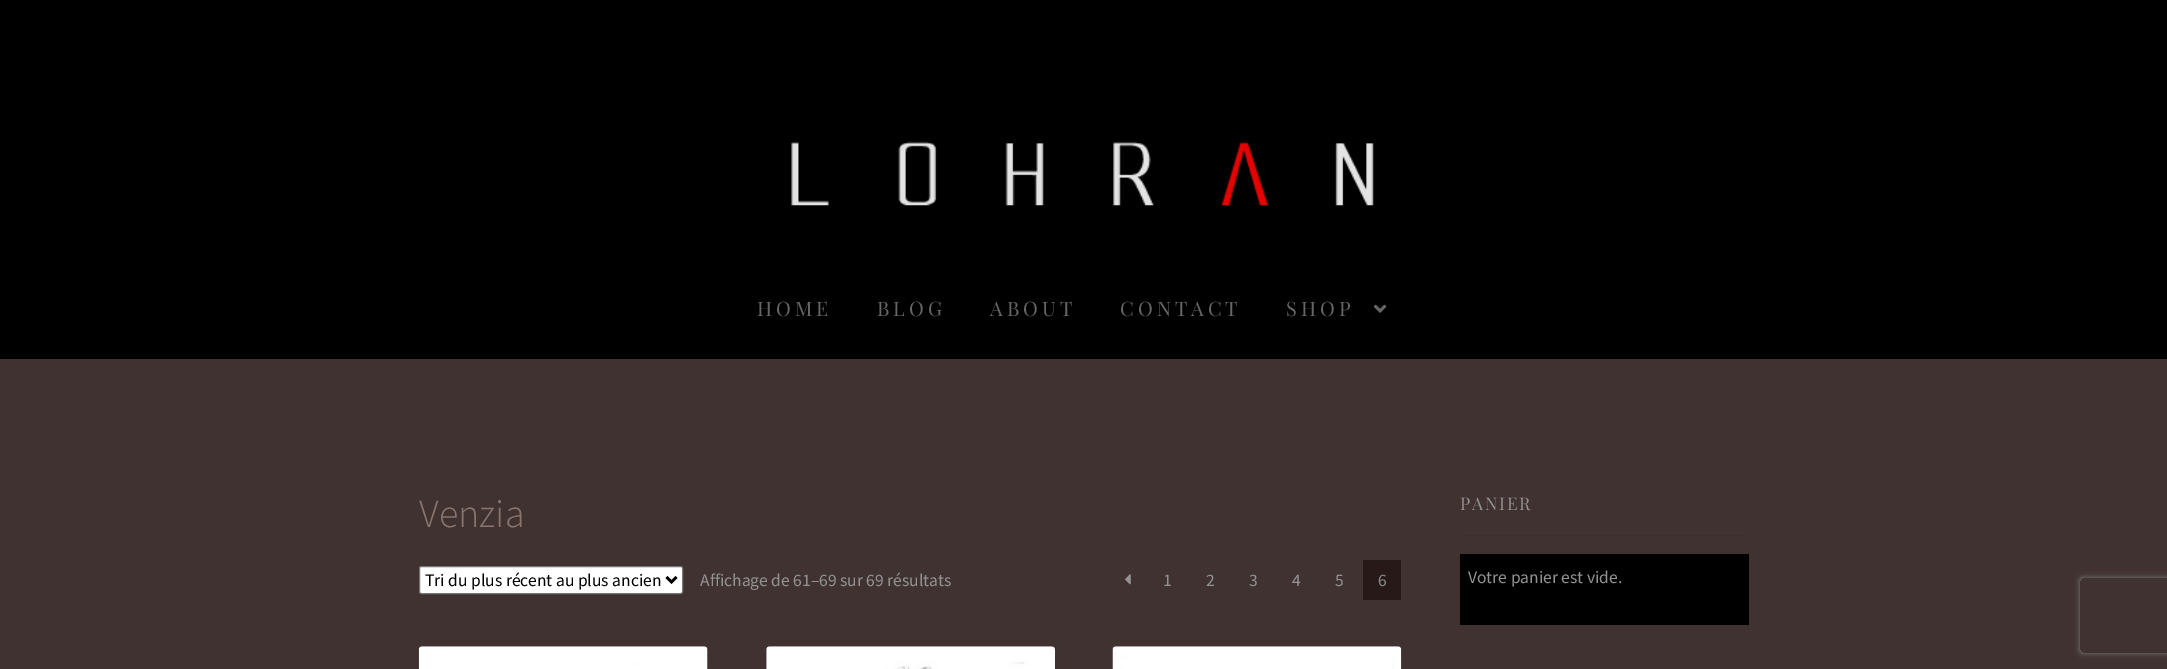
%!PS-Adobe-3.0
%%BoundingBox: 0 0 2167 669
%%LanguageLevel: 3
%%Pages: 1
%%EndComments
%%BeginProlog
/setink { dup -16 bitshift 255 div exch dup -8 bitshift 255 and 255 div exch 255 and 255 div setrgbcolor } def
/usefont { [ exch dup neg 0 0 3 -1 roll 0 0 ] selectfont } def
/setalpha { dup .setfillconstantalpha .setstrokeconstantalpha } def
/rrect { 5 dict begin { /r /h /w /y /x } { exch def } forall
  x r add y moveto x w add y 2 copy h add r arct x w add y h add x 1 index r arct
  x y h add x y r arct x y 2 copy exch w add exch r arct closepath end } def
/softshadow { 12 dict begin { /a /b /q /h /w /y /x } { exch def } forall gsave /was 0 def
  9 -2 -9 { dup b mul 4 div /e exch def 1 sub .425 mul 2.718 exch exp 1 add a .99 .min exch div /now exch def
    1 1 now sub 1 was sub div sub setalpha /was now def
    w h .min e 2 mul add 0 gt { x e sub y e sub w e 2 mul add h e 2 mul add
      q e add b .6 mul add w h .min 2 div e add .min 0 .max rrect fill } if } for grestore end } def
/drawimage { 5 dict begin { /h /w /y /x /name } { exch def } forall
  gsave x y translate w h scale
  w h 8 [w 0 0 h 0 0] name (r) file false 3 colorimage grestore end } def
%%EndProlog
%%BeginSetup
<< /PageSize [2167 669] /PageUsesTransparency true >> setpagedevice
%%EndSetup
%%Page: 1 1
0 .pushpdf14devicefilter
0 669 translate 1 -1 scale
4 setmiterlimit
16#3F3231 setink
0 0 2167 669 rectfill
16#000000 setink
0 0 2167 359 rectfill
(img1.raw) 791 141 583 65 drawimage
/PlayfairDisplay-Regular 20 usefont
16#666666 setink
757 316 moveto 4 0 (HOME) ashow
877 316 moveto 4 0 (BLOG) ashow
990 316 moveto 4 0 (ABOUT) ashow
1120 316 moveto 4 0 (CONTACT) ashow
1286 316 moveto 4 0 (SHOP) ashow
(img2.raw) 1373 304 14 9 drawimage
/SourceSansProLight-Light 40 usefont
16#89746E setink
419 527 moveto (Venzia) show
16#FFFFFF setink
419.5 566.5 263 27 2 rrect gsave fill grestore
16#767676 setink
stroke
16#000000 setink
2.5 setlinewidth
666.5 577 moveto 671.5 582 lineto 676.5 577 lineto stroke
/SourceSansPro-Regular 17.5 usefont
425 586 moveto (Tri du plus récent au plus ancien) show
16#939393 setink
700 586 moveto (Affichage de 61–69 sur 69 résultats) show
(img3.raw) 1125 574 6 11 drawimage
[
    [(1) 1163 586]
    [(2) 1206 586]
    [(3) 1249 586]
    [(4) 1292 586]
    [(5) 1335 586]
] { aload pop moveto show } forall
16#261918 setink
1363 560 38 40 rectfill
16#898989 setink
1378 586 moveto (6) show
(img4.raw) 418 646 290 23 drawimage
(img5.raw) 766 646 289 23 drawimage
(img6.raw) 1112 646 290 23 drawimage
16#3C302F setink
1460 535 289 1 rectfill
/PlayfairDisplay-Regular 17.5 usefont
16#939393 setink
1460 510 moveto 1.75 0 (PANIER) ashow
16#000000 setink
1460 554 289 71 rectfill
/SourceSansPro-Regular 17.5 usefont
16#939393 setink
1468 583 moveto (Votre panier est vide.) show
gsave
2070 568 moveto 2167 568 lineto 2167 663 lineto 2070 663 lineto closepath 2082.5 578 moveto 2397.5 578 lineto 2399 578 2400 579 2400 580.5 curveto 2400 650.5 lineto 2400 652 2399 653 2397.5 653 curveto 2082.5 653 lineto 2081 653 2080 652 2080 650.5 curveto 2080 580.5 lineto 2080 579 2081 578 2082.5 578 curveto closepath eoclip newpath
16#808080 setink
2080 578 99 75 2.5 3 1 softshadow
grestore
.poppdf14devicefilter showpage
%%EOF
